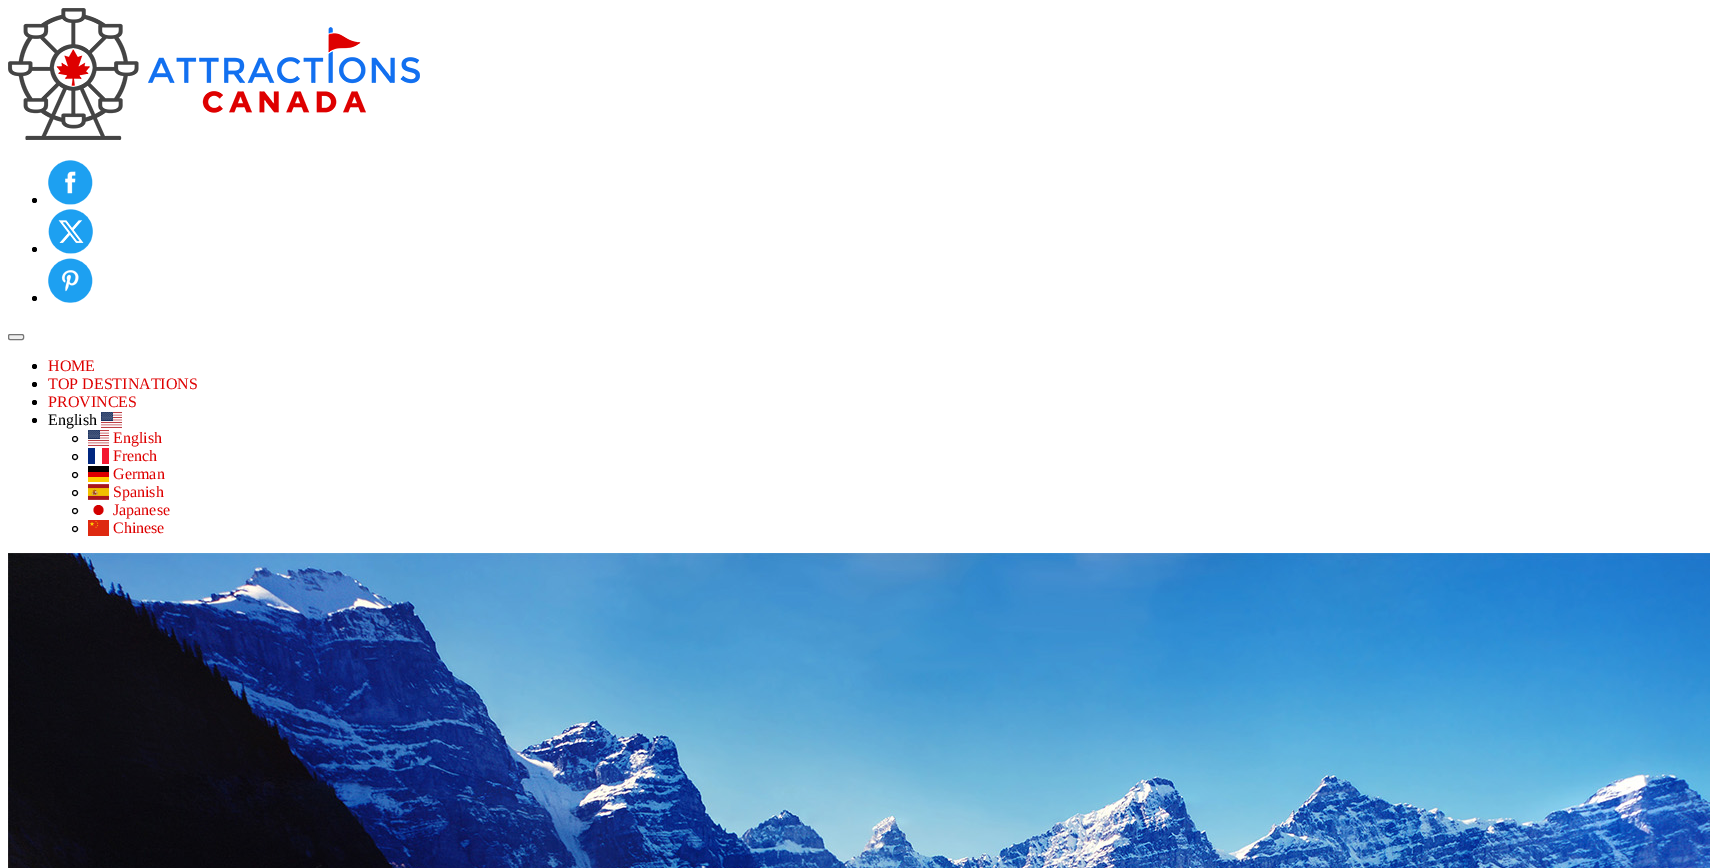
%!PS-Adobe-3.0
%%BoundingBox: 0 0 1710 868
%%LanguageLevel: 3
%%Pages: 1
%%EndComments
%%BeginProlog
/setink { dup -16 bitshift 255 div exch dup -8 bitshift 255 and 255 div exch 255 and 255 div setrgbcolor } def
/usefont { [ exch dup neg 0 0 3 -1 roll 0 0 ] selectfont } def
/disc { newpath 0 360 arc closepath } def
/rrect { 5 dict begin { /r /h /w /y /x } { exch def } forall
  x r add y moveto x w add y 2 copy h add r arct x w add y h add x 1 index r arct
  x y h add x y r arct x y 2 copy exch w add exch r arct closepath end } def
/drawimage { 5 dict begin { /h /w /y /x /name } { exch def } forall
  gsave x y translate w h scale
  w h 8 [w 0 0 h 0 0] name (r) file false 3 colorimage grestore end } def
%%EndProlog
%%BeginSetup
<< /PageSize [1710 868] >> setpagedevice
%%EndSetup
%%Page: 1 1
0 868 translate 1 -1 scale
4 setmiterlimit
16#FFFFFF setink
0 0 1710 868 rectfill
(img1.raw) 8 8 412 132 drawimage
16#000000 setink
34.5 200.5 2.5 disc fill
(img2.raw) 48 160 45 45 drawimage
34.5 249.5 2.5 disc fill
(img3.raw) 48 209 45 45 drawimage
34.5 298.5 2.5 disc fill
(img4.raw) 48 258 45 45 drawimage
16#EFEFEF setink
8.5 334.5 15 5 1.5 rrect gsave fill grestore
16#767676 setink
stroke
16#000000 setink
34.5 366.5 2.5 disc fill
/LiberationSerif-Regular 16 usefont
16#DE0000 setink
48 371 moveto (HOME) show
16#000000 setink
34.5 384.5 2.5 disc fill
16#DE0000 setink
48 389 moveto (TOP DESTINATIONS) show
16#000000 setink
34.5 402.5 2.5 disc fill
16#DE0000 setink
48 407 moveto (PROVINCES) show
16#000000 setink
34.5 420.5 2.5 disc fill
48 425 moveto (English) show
(img5.raw) 101 412 21 16 drawimage
75 439 2.5 disc stroke
(img5.raw) 88 430 21 16 drawimage
16#DE0000 setink
113 443 moveto (English) show
16#000000 setink
75 457 2.5 disc stroke
16#00267F setink
88 448 7 16 rectfill
16#F31830 setink
102 448 7 16 rectfill
16#DE0000 setink
113 461 moveto (French) show
16#000000 setink
75 475 2.5 disc stroke
[
    [88 477 21 5 16#FFCE00]
    [88 466 21 6 16#000000]
    [88 472 21 5 16#DD0000]
] { aload pop setink rectfill } forall
16#DE0000 setink
113 479 moveto (German) show
16#000000 setink
75 493 2.5 disc stroke
(img6.raw) 88 484 21 16 drawimage
16#DE0000 setink
113 497 moveto (Spanish) show
16#000000 setink
75 511 2.5 disc stroke
16#D30000 setink
98.5 510 5 disc fill
16#DE0000 setink
113 515 moveto (Japanese) show
16#000000 setink
75 529 2.5 disc stroke
(img7.raw) 88 520 21 16 drawimage
16#DE0000 setink
113 533 moveto (Chinese) show
(img8.raw) 8 553 1702 315 drawimage
showpage
%%EOF
